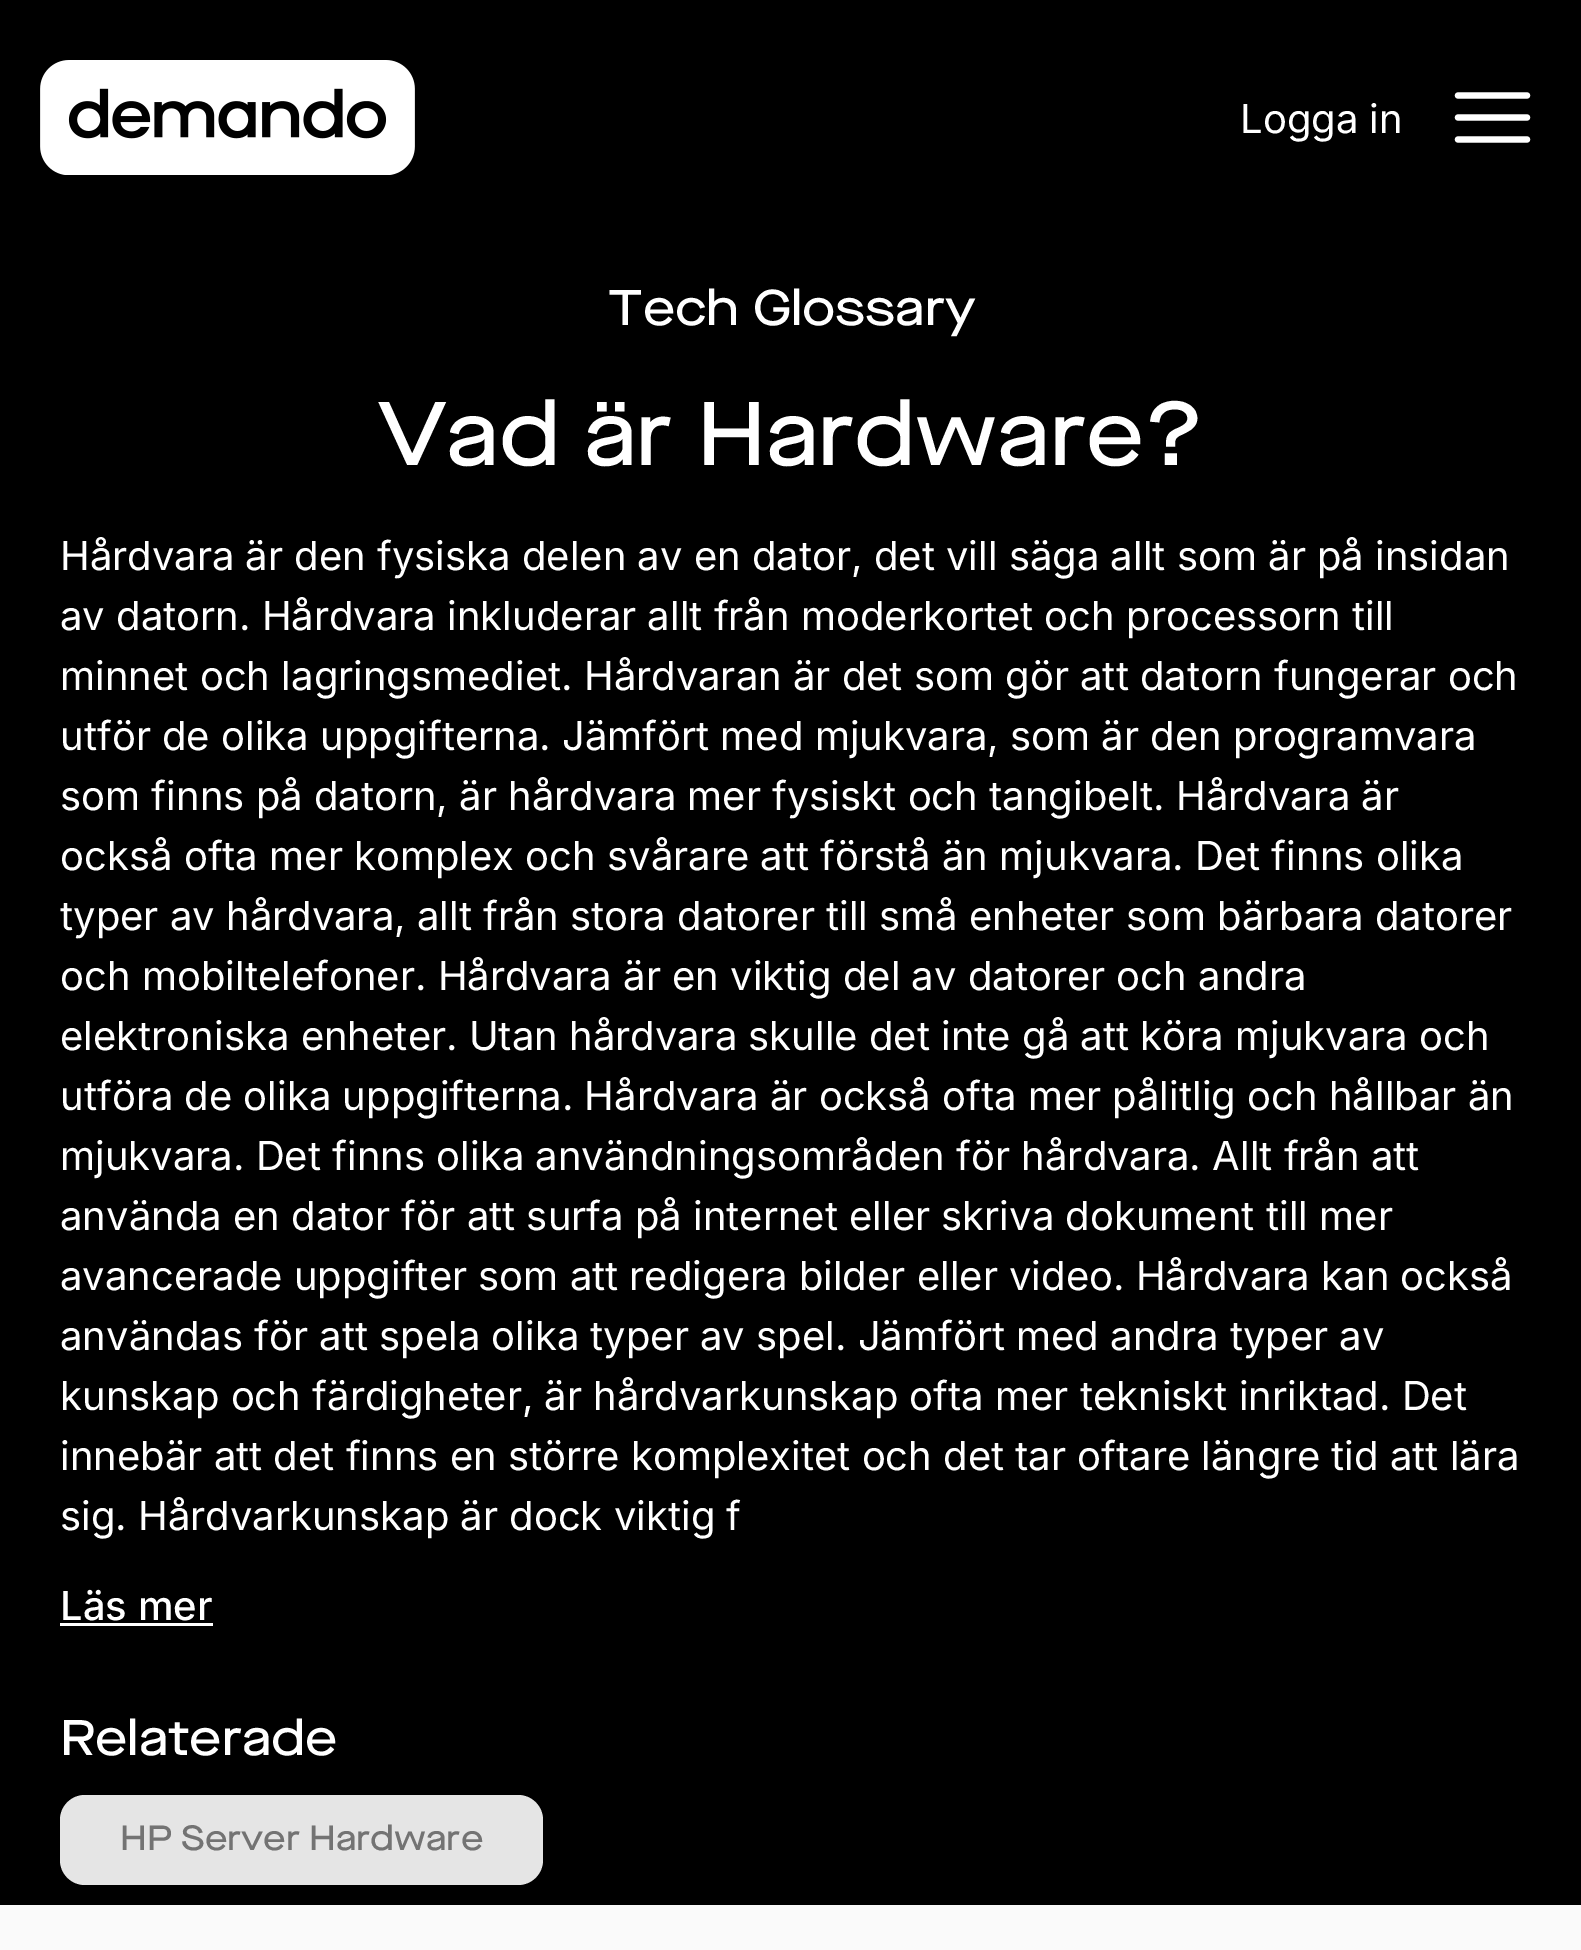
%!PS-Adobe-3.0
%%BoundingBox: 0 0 1581 1950
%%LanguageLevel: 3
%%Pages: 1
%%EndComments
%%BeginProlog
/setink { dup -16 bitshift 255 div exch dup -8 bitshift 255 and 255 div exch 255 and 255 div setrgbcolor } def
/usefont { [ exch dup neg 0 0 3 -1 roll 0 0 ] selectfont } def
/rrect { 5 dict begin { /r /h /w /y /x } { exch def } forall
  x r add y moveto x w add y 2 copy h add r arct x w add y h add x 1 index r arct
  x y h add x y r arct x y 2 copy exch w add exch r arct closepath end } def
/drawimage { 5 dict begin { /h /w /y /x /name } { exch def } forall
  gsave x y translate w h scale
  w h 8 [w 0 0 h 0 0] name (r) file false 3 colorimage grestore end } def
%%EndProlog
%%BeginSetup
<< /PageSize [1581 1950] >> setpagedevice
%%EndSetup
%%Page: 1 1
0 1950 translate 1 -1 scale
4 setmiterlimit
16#000000 setink
0 0 1581 1950 rectfill
(img1.raw) 40 60 375 115 drawimage
/Inter-Regular 40 usefont
16#FFFFFF setink
1240 133 moveto (Logga in) show
6.2 setlinewidth
1 setlinecap
1 setlinejoin
1458 95.5 moveto 1527 95.5 lineto 1458 117.5 moveto 1527 117.5 lineto 1458 139.5 moveto 1527 139.5 lineto stroke
/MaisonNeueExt-Medium 50 usefont
608 325 moveto (Tech Glossary) show
/MaisonNeueExt-Medium 90 usefont
378 465 moveto (Vad är Hardware?) show
/Inter-Regular 40 usefont
[
    [(Hårdvara är den fysiska delen av en dator, det vill säga allt som är på insidan) 60 570]
    [(av datorn. Hårdvara inkluderar allt från moderkortet och processorn till) 60 630]
    [(minnet och lagringsmediet. Hårdvaran är det som gör att datorn fungerar och) 60 690]
    [(utför de olika uppgifterna. Jämfört med mjukvara, som är den programvara) 60 750]
    [(som finns på datorn, är hårdvara mer fysiskt och tangibelt. Hårdvara är) 60 810]
    [(också ofta mer komplex och svårare att förstå än mjukvara. Det finns olika) 60 870]
    [(typer av hårdvara, allt från stora datorer till små enheter som bärbara datorer) 60 930]
    [(och mobiltelefoner. Hårdvara är en viktig del av datorer och andra) 60 990]
    [(elektroniska enheter. Utan hårdvara skulle det inte gå att köra mjukvara och) 60 1050]
    [(utföra de olika uppgifterna. Hårdvara är också ofta mer pålitlig och hållbar än) 60 1110]
    [(mjukvara. Det finns olika användningsområden för hårdvara. Allt från att) 60 1170]
    [(använda en dator för att surfa på internet eller skriva dokument till mer) 60 1230]
    [(avancerade uppgifter som att redigera bilder eller video. Hårdvara kan också) 60 1290]
    [(användas för att spela olika typer av spel. Jämfört med andra typer av) 60 1350]
    [(kunskap och färdigheter, är hårdvarkunskap ofta mer tekniskt inriktad. Det) 60 1410]
    [(innebär att det finns en större komplexitet och det tar oftare längre tid att lära) 60 1470]
    [(sig. Hårdvarkunskap är dock viktig f) 60 1530]
] { aload pop moveto show } forall
/Inter-Medium 40 usefont
60 1620 moveto (Läs mer) show
60 1623 153 3 rectfill
/MaisonNeueExt-Medium 50 usefont
60 1755 moveto (Relaterade) show
16#E5E5E5 setink
60 1795 483 90 25 rrect fill
/MaisonNeueExt-Medium 35 usefont
16#737373 setink
120 1850 moveto (HP Server Hardware) show
16#FAFAFA setink
0 1905 1581 45 rectfill
showpage
%%EOF
